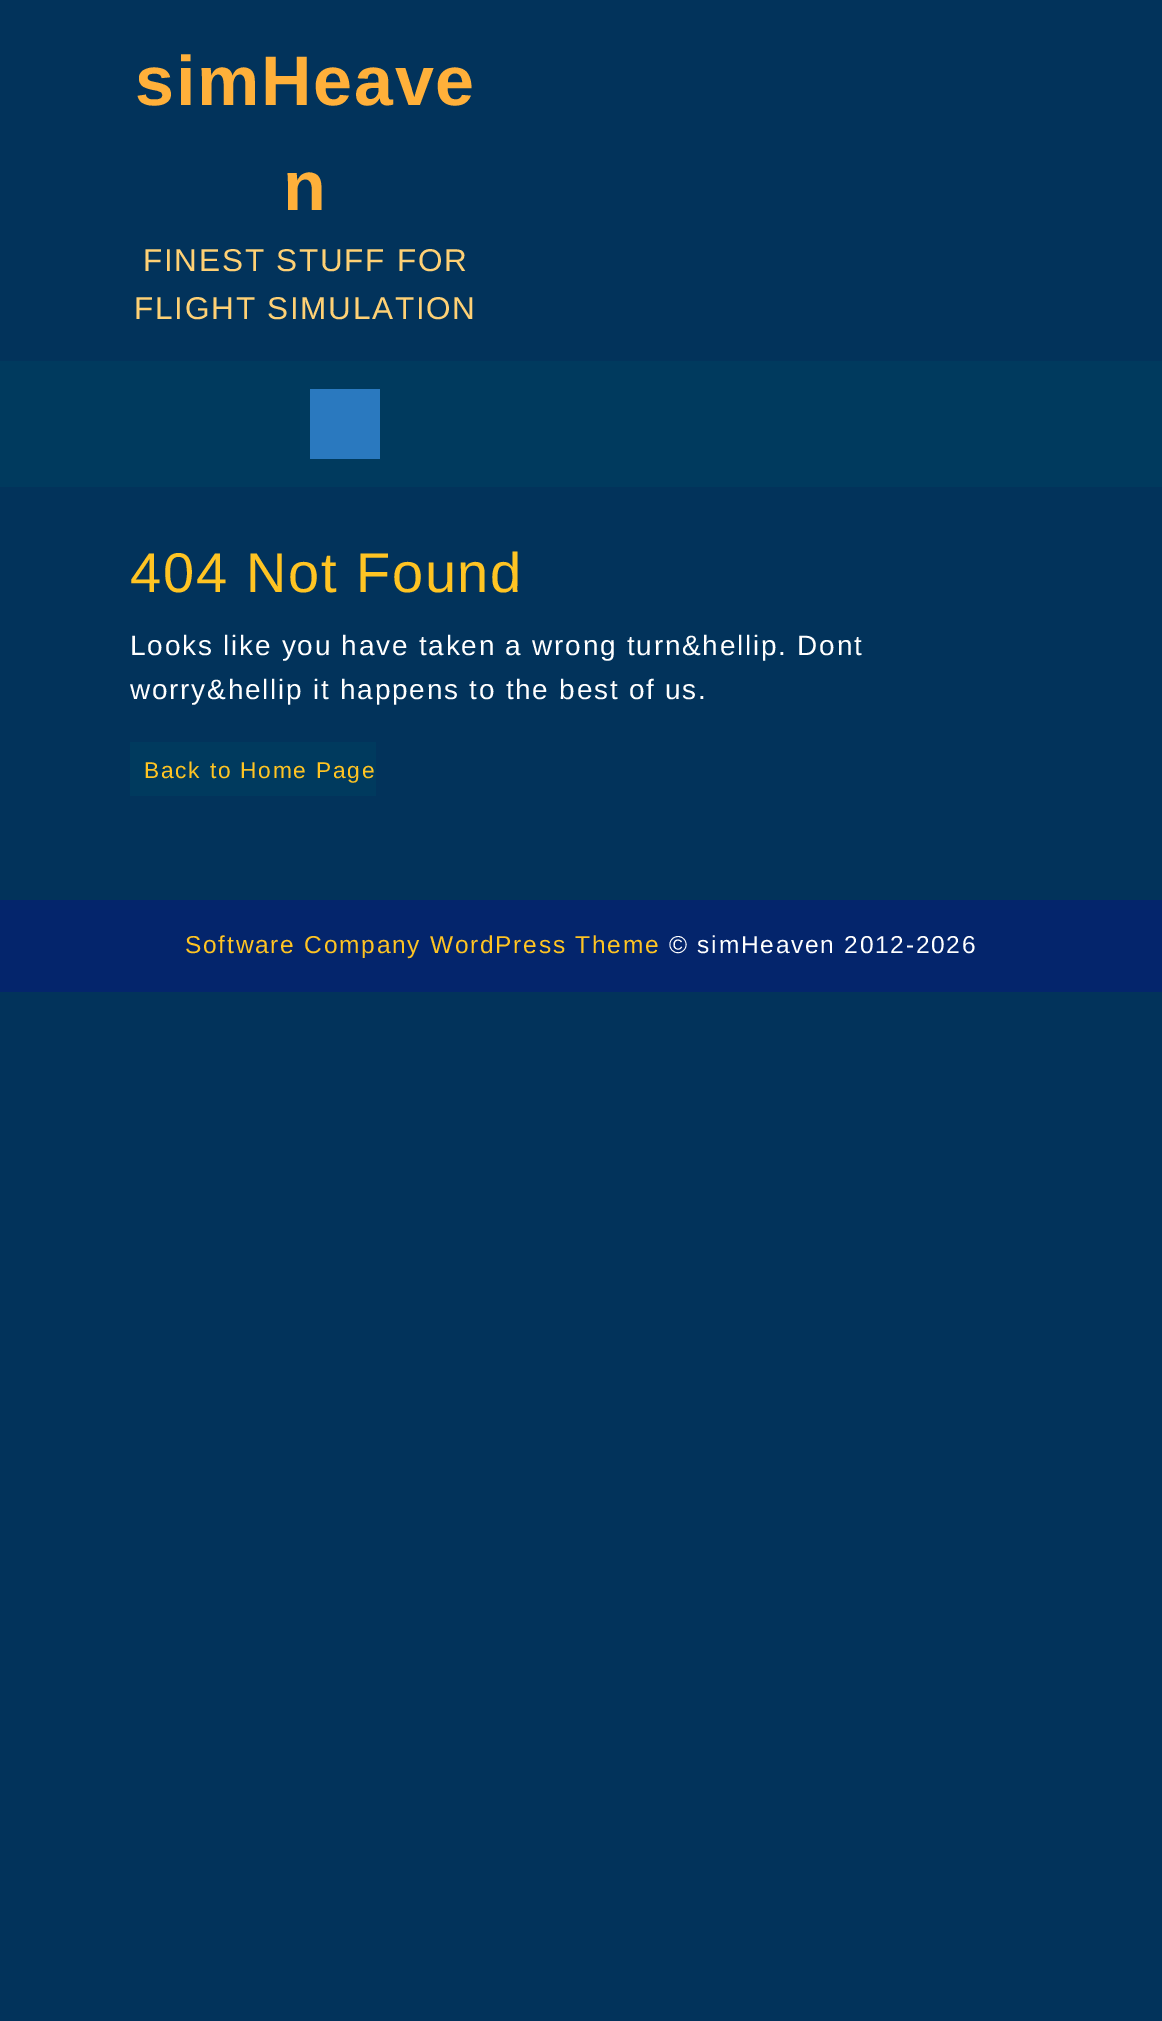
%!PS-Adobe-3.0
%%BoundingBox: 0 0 1162 2021
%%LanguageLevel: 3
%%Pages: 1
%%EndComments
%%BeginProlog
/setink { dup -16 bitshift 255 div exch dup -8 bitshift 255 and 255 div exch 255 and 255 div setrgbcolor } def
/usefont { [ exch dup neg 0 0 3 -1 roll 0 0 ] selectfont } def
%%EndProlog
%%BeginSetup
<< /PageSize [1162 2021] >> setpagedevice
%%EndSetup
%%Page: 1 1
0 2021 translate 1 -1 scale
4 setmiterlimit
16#02335B setink
0 0 1162 2021 rectfill
/LiberationSans-Bold 70 usefont
16#FFB03A setink
135 105 moveto 1.75 0 (simHeave) ashow
283 210 moveto 1.75 0 (n) ashow
/LiberationSans-Regular 31.5 usefont
16#FFD175 setink
143 271 moveto 1.75 0 (FINEST STUFF FOR) ashow
134 319 moveto 1.75 0 (FLIGHT SIMULATION) ashow
16#003A5E setink
0 361 1162 126 rectfill
16#2A79BF setink
310 389 70 70 rectfill
/LiberationSans-Regular 56 usefont
16#FFC423 setink
130 592 moveto 1.75 0 (404 Not Found) ashow
/LiberationSans-Regular 28 usefont
16#FFFFFF setink
130 655 moveto 1.75 0 (Looks like you have taken a wrong turn&hellip. Dont) ashow
130 699 moveto 1.75 0 (worry&hellip it happens to the best of us.) ashow
16#003A5E setink
130 742 246 54 rectfill
/LiberationSans-Regular 22.75 usefont
16#FFC423 setink
144 778 moveto 1.75 0 (Back to Home Page) ashow
16#04256C setink
0 900 1162 92 rectfill
/LiberationSans-Regular 24.5 usefont
16#FFC423 setink
185 953 moveto 1.75 0 (Software Company WordPress Theme) ashow
16#FFFFFF setink
669 953 moveto 1.75 0 (© simHeaven 2012-2026) ashow
showpage
%%EOF
